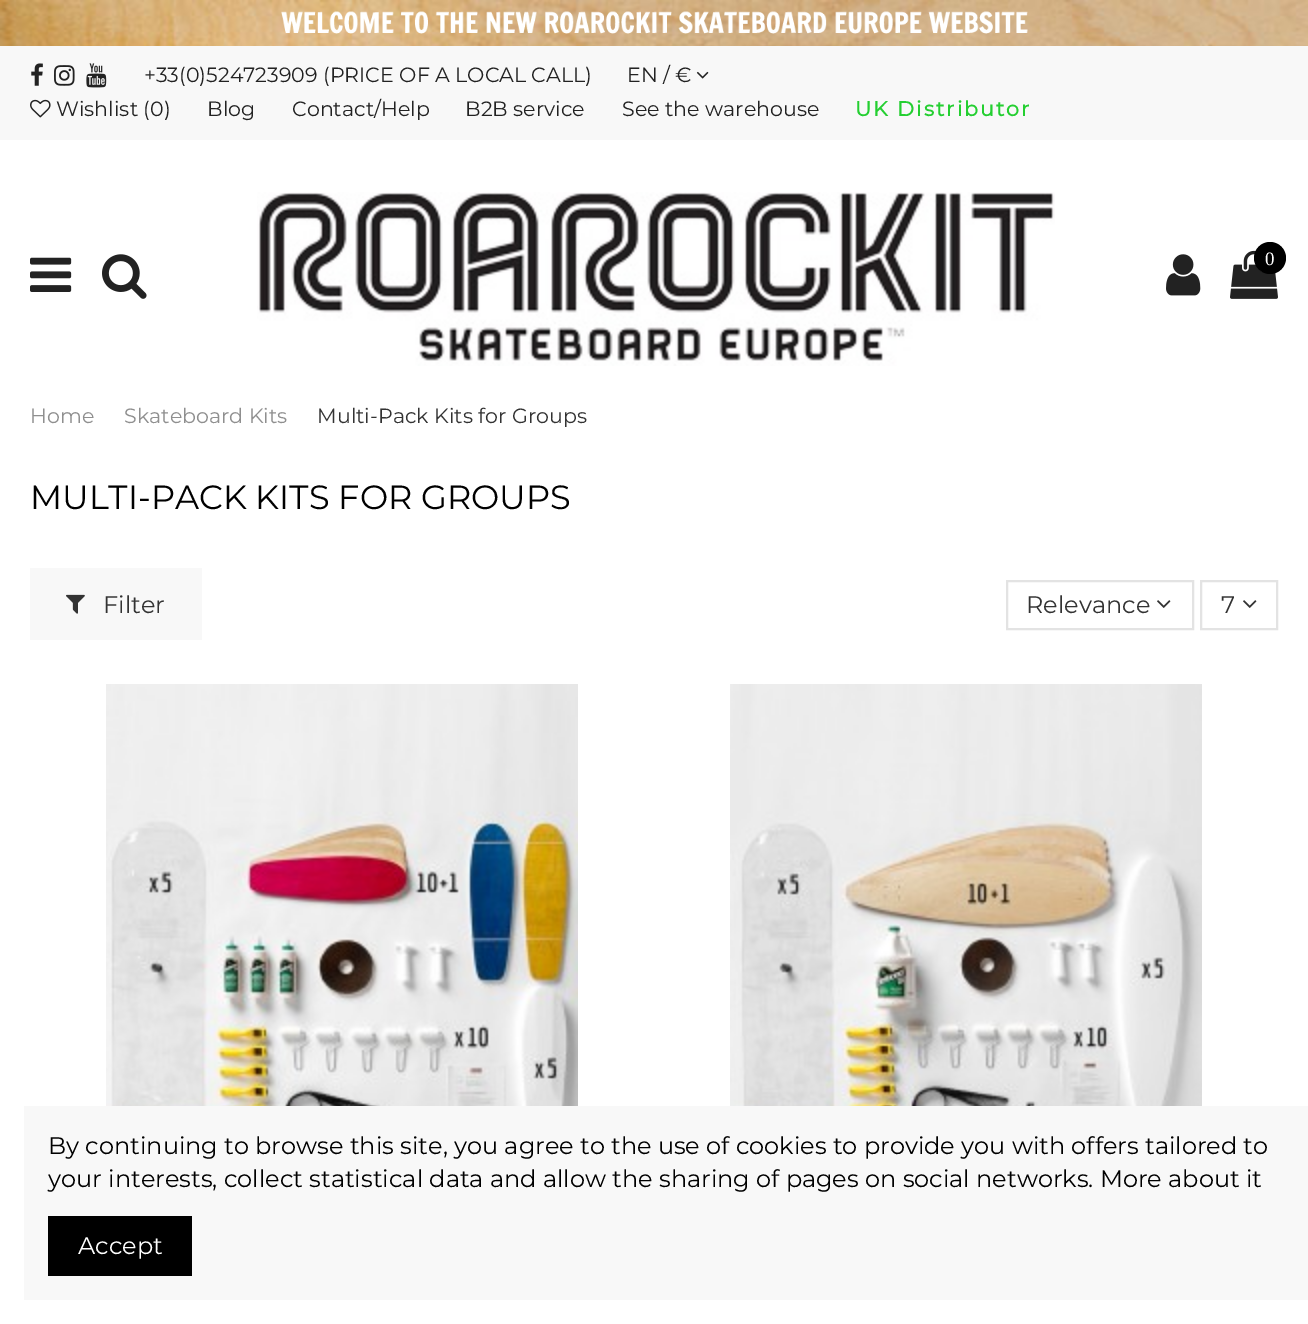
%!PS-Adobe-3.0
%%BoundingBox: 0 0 1308 1324
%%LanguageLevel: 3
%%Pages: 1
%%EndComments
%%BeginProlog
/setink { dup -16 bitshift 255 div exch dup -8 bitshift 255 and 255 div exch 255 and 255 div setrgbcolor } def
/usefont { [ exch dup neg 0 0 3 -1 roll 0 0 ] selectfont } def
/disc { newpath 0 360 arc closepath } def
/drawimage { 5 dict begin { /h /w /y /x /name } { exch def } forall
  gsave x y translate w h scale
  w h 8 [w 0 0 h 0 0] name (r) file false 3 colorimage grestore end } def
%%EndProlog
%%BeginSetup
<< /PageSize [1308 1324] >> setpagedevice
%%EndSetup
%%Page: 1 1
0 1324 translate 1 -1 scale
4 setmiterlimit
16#FFFFFF setink
0 0 1308 1324 rectfill
(img1.raw) 0 0 1308 46 drawimage
(img2.raw) 281 11 747 23 drawimage
16#F8F8F8 setink
0 46 1308 94 rectfill
(img3.raw) 31 63 12 23 drawimage
(img4.raw) 54 65 21 21 drawimage
(img5.raw) 86 63 21 25 drawimage
/Montserrat-Thin 20.6 usefont
16#222222 setink
144 82 moveto (+33\(0\)524723909 \(PRICE OF A LOCAL CALL\)) show
627 82 moveto (EN / €) show
(img6.raw) 696 71 13 8 drawimage
(img7.raw) 30 99 21 19 drawimage
[
    [(Wishlist \(0\)) 56 116]
    [(Blog) 207 116]
    [(Contact/Help) 292 116]
    [(B2B service) 465 116]
    [(See the warehouse) 622 116]
] { aload pop moveto show } forall
/Montserrat-Bold 20.6 usefont
16#24CF31 setink
855 116 moveto 2 0 (UK Distributor) ashow
(img8.raw) 30 257 42 35 drawimage
(img9.raw) 102 254 45 45 drawimage
(img10.raw) 257 192 798 174 drawimage
(img11.raw) 1166 254 35 42 drawimage
(img12.raw) 1230 250 48 49 drawimage
16#000000 setink
1270 258 16 disc fill
/LiberationSerif-Regular 19 usefont
16#FFFFFF setink
1265 265 moveto (0) show
/Montserrat-Thin 20.6 usefont
16#8F8F8F setink
30 423 moveto (Home) show
124 423 moveto (Skateboard Kits) show
16#333333 setink
317 423 moveto (Multi-Pack Kits for Groups) show
/Montserrat-Thin 33.6 usefont
16#000000 setink
30 509 moveto (MULTI-PACK KITS FOR GROUPS) show
16#F8F8F8 setink
30 568 172 72 rectfill
(img13.raw) 66 594 19 20 drawimage
/Montserrat-Thin 24 usefont
16#333333 setink
103 613 moveto (Filter) show
16#E3E3E3 setink
2 setlinewidth
1007 581 186 48 rectstroke
16#333333 setink
1026 613 moveto (Relevance) show
(img14.raw) 1157 600 14 8 drawimage
16#E3E3E3 setink
1201 581 76 48 rectstroke
16#333333 setink
1221 613 moveto (7) show
(img14.raw) 1243 600 14 8 drawimage
(img15.raw) 106 684 472 422 drawimage
(img16.raw) 730 684 472 422 drawimage
16#F8F8F8 setink
24 1106 1284 194 rectfill
16#000000 setink
48 1154 moveto (By continuing to browse this site, you agree to the use of cookies to provide you with offers tailored to) show
48 1187 moveto (your interests, collect statistical data and allow the sharing of pages on social networks. More about it) show
48 1216 144 60 rectfill
16#FFFFFF setink
78 1254 moveto (Accept) show
showpage
%%EOF
